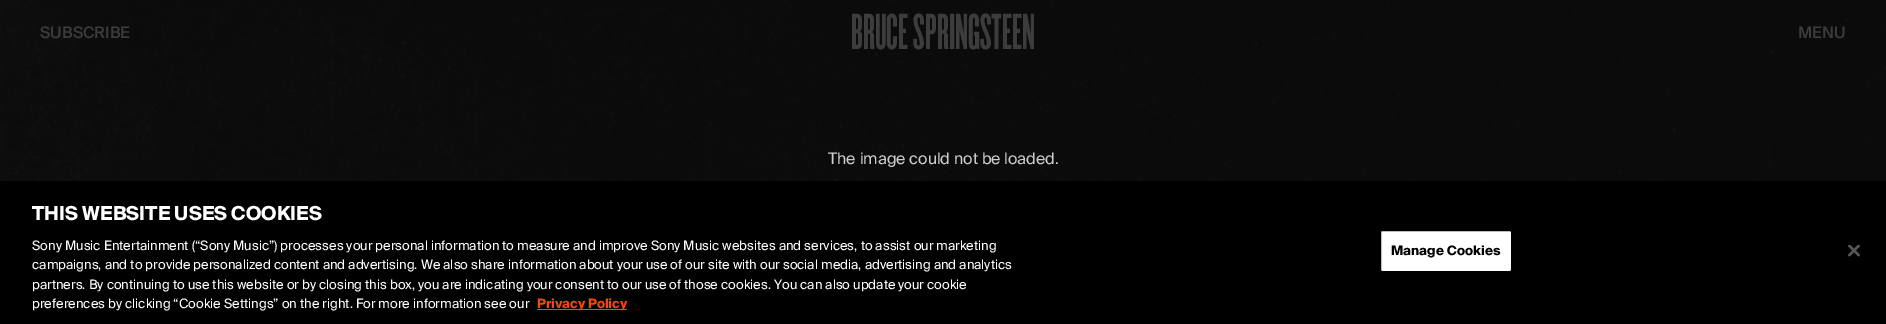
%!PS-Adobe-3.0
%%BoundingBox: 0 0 1886 324
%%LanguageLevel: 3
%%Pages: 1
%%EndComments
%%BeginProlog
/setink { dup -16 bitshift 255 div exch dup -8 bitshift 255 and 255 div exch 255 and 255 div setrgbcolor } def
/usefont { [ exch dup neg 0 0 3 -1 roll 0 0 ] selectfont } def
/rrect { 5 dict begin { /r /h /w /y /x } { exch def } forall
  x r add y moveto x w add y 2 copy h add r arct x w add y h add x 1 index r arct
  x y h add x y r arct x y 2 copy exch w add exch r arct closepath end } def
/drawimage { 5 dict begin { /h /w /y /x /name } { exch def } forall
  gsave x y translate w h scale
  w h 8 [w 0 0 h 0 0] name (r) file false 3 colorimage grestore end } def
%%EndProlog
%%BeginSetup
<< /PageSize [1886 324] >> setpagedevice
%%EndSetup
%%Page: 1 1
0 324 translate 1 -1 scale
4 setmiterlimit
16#0D0D0D setink
0 0 1886 324 rectfill
(img1.raw) 0 0 1886 181 drawimage
/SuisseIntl-Medium 16 usefont
16#3C3C3C setink
40 38 moveto (SUBSCRIBE) show
/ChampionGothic-ExtraLight 44 usefont
851 49 moveto (BRUCE SPRINGSTEEN) show
/SuisseIntl-Medium 16 usefont
1798 38 moveto (MENU) show
/SuisseIntl-Regular 16 usefont
16#CCCCCC setink
828 164 moveto (The image could not be loaded.) show
16#000000 setink
0 181 1886 143 rectfill
/SuisseIntl-Bold 19.25 usefont
16#FFFFFF setink
32 220 moveto (THIS WEBSITE USES COOKIES) show
/SuisseIntl-Regular 13 usefont
[
    [(Sony Music Entertainment \(“Sony Music”\) processes your personal information to measure and improve Sony Music websites and services, to assist our marketing) 32 250]
    [(campaigns, and to provide personalized content and advertising. We also share information about your use of our site with our social media, advertising and analytics) 32 269]
    [(partners. By continuing to use this website or by closing this box, you are indicating your consent to our use of those cookies. You can also update your cookie) 32 289]
    [(preferences by clicking “Cookie Settings” on the right. For more information see our) 32 308]
] { aload pop moveto show } forall
16#F04819 setink
537 309 90 1 rectfill
/SuisseIntl-Bold 13 usefont
537 308 moveto (Privacy Policy) show
16#FFFFFF setink
1380.5 230.5 131 41 1.5 rrect gsave fill grestore
16#000000 setink
stroke
1391 255 moveto 0.1 0 (Manage Cookies) ashow
(img2.raw) 1848 245 12 12 drawimage
showpage
%%EOF
